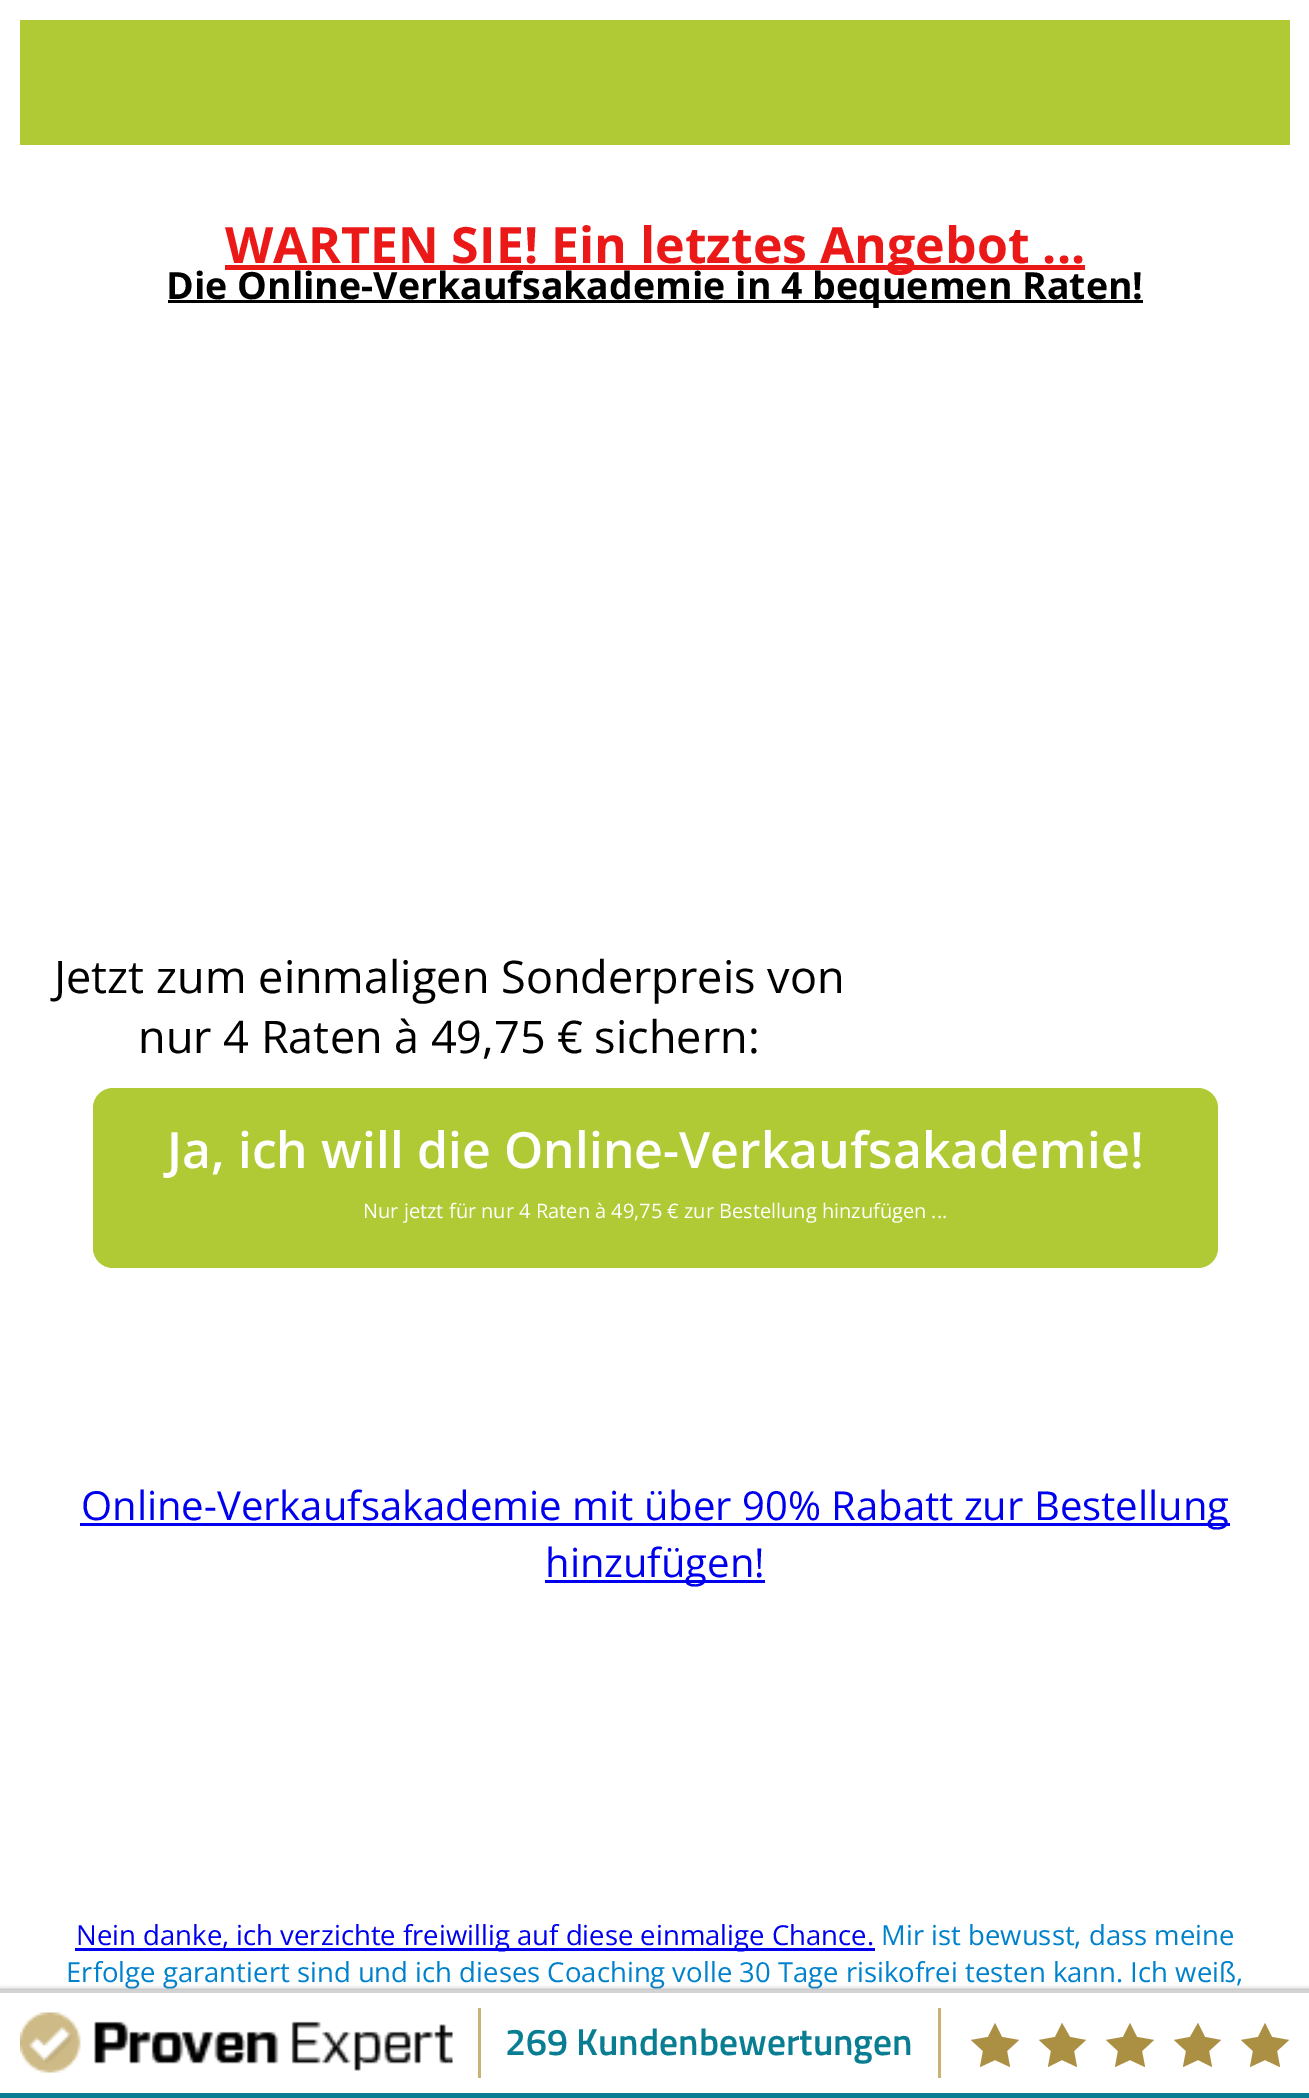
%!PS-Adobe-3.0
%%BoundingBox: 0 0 1309 2098
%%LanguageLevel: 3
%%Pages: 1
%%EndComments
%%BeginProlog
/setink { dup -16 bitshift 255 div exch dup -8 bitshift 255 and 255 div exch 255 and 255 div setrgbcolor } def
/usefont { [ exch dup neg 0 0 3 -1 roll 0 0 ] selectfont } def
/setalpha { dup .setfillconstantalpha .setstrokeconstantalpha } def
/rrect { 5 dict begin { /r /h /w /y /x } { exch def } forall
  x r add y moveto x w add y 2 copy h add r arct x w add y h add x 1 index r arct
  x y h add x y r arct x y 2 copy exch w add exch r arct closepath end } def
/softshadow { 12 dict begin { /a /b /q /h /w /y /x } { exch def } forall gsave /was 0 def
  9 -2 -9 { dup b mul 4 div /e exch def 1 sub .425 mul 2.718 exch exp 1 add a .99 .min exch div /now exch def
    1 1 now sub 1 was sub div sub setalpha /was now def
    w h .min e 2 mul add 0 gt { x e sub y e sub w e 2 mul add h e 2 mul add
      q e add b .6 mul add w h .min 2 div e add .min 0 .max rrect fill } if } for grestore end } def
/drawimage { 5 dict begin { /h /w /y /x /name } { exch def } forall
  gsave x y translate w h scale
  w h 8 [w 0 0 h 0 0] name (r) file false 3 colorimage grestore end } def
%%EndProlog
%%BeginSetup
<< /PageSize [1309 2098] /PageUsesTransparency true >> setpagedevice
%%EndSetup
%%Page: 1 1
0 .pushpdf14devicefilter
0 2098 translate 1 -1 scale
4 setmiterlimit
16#FFFFFF setink
0 0 1309 2098 rectfill
16#B0CA35 setink
20 20 1270 125 rectfill
16#EB1818 setink
225 265 860 5 rectfill
/OpenSans-Bold 50 usefont
225 263 moveto (WARTEN SIE! Ein letztes Angebot ...) show
16#000000 setink
168 300 975 3 rectfill
/OpenSans-Bold 37.5 usefont
166 299 moveto (Die Online-Verkaufsakademie in 4 bequemen Raten!) show
/OpenSans-Regular 45 usefont
54 993 moveto (Jetzt zum einmaligen Sonderpreis von) show
138 1053 moveto (nur 4 Raten à 49,75 € sichern:) show
16#B0CA35 setink
93 1088 1125 180 20 rrect fill
/OpenSans-SemiBold 50 usefont
16#FFFFFF setink
167 1168 moveto (Ja, ich will die Online-Verkaufsakademie!) show
/OpenSans-Regular 20 usefont
363 1218 moveto (Nur jetzt für nur 4 Raten à 49,75 € zur Bestellung hinzufügen ...) show
16#0000EE setink
80 1523 1150 3 rectfill
/OpenSans-Regular 40 usefont
81 1520 moveto (Online-Verkaufsakademie mit über 90% Rabatt zur Bestellung) show
545 1580 220 3 rectfill
545 1577 moveto (hinzufügen!) show
75 1948 800 3 rectfill
/OpenSans-Regular 27.5 usefont
76 1945 moveto (Nein danke, ich verzichte freiwillig auf diese einmalige Chance.) show
16#0081CC setink
881 1945 moveto (Mir ist bewusst, dass meine) show
66 1982 moveto (Erfolge garantiert sind und ich dieses Coaching volle 30 Tage risikofrei testen kann. Ich weiß,) show
16#888888 setink
0 1990 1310 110 0 2.5 1 softshadow
16#FFFFFF setink
0 1993 1309 100 rectfill
16#D3D3D3 setink
0 1990 1309 3 rectfill
(img1.raw) 20 2012 433 61 drawimage
16#C8B274 setink
478 2008 3 70 rectfill
/TitilliumWeb-SemiBold 37.5 usefont
16#097E92 setink
505 2055 moveto (269 Kundenbewertungen) show
16#C8B274 setink
938 2008 3 70 rectfill
16#AB9044 setink
995 2023 moveto 1002 2037 lineto 1019 2040 lineto 1007 2051 lineto 1010 2067 lineto 995 2060 lineto 980 2067 lineto 983 2051 lineto 971 2040 lineto 988 2037 lineto closepath fill
1062 2023 moveto 1070 2037 lineto 1086 2040 lineto 1074 2051 lineto 1077 2067 lineto 1062 2060 lineto 1048 2067 lineto 1051 2051 lineto 1039 2040 lineto 1055 2037 lineto closepath fill
1130 2023 moveto 1137 2037 lineto 1154 2040 lineto 1142 2051 lineto 1145 2067 lineto 1130 2060 lineto 1115 2067 lineto 1118 2051 lineto 1106 2040 lineto 1123 2037 lineto closepath fill
1198 2023 moveto 1205 2037 lineto 1221 2040 lineto 1209 2051 lineto 1212 2067 lineto 1198 2060 lineto 1183 2067 lineto 1186 2051 lineto 1174 2040 lineto 1190 2037 lineto closepath fill
1265 2023 moveto 1272 2037 lineto 1289 2040 lineto 1277 2051 lineto 1280 2067 lineto 1265 2060 lineto 1250 2067 lineto 1253 2051 lineto 1241 2040 lineto 1258 2037 lineto closepath fill
16#097E92 setink
0 2093 1309 5 rectfill
.poppdf14devicefilter showpage
%%EOF
